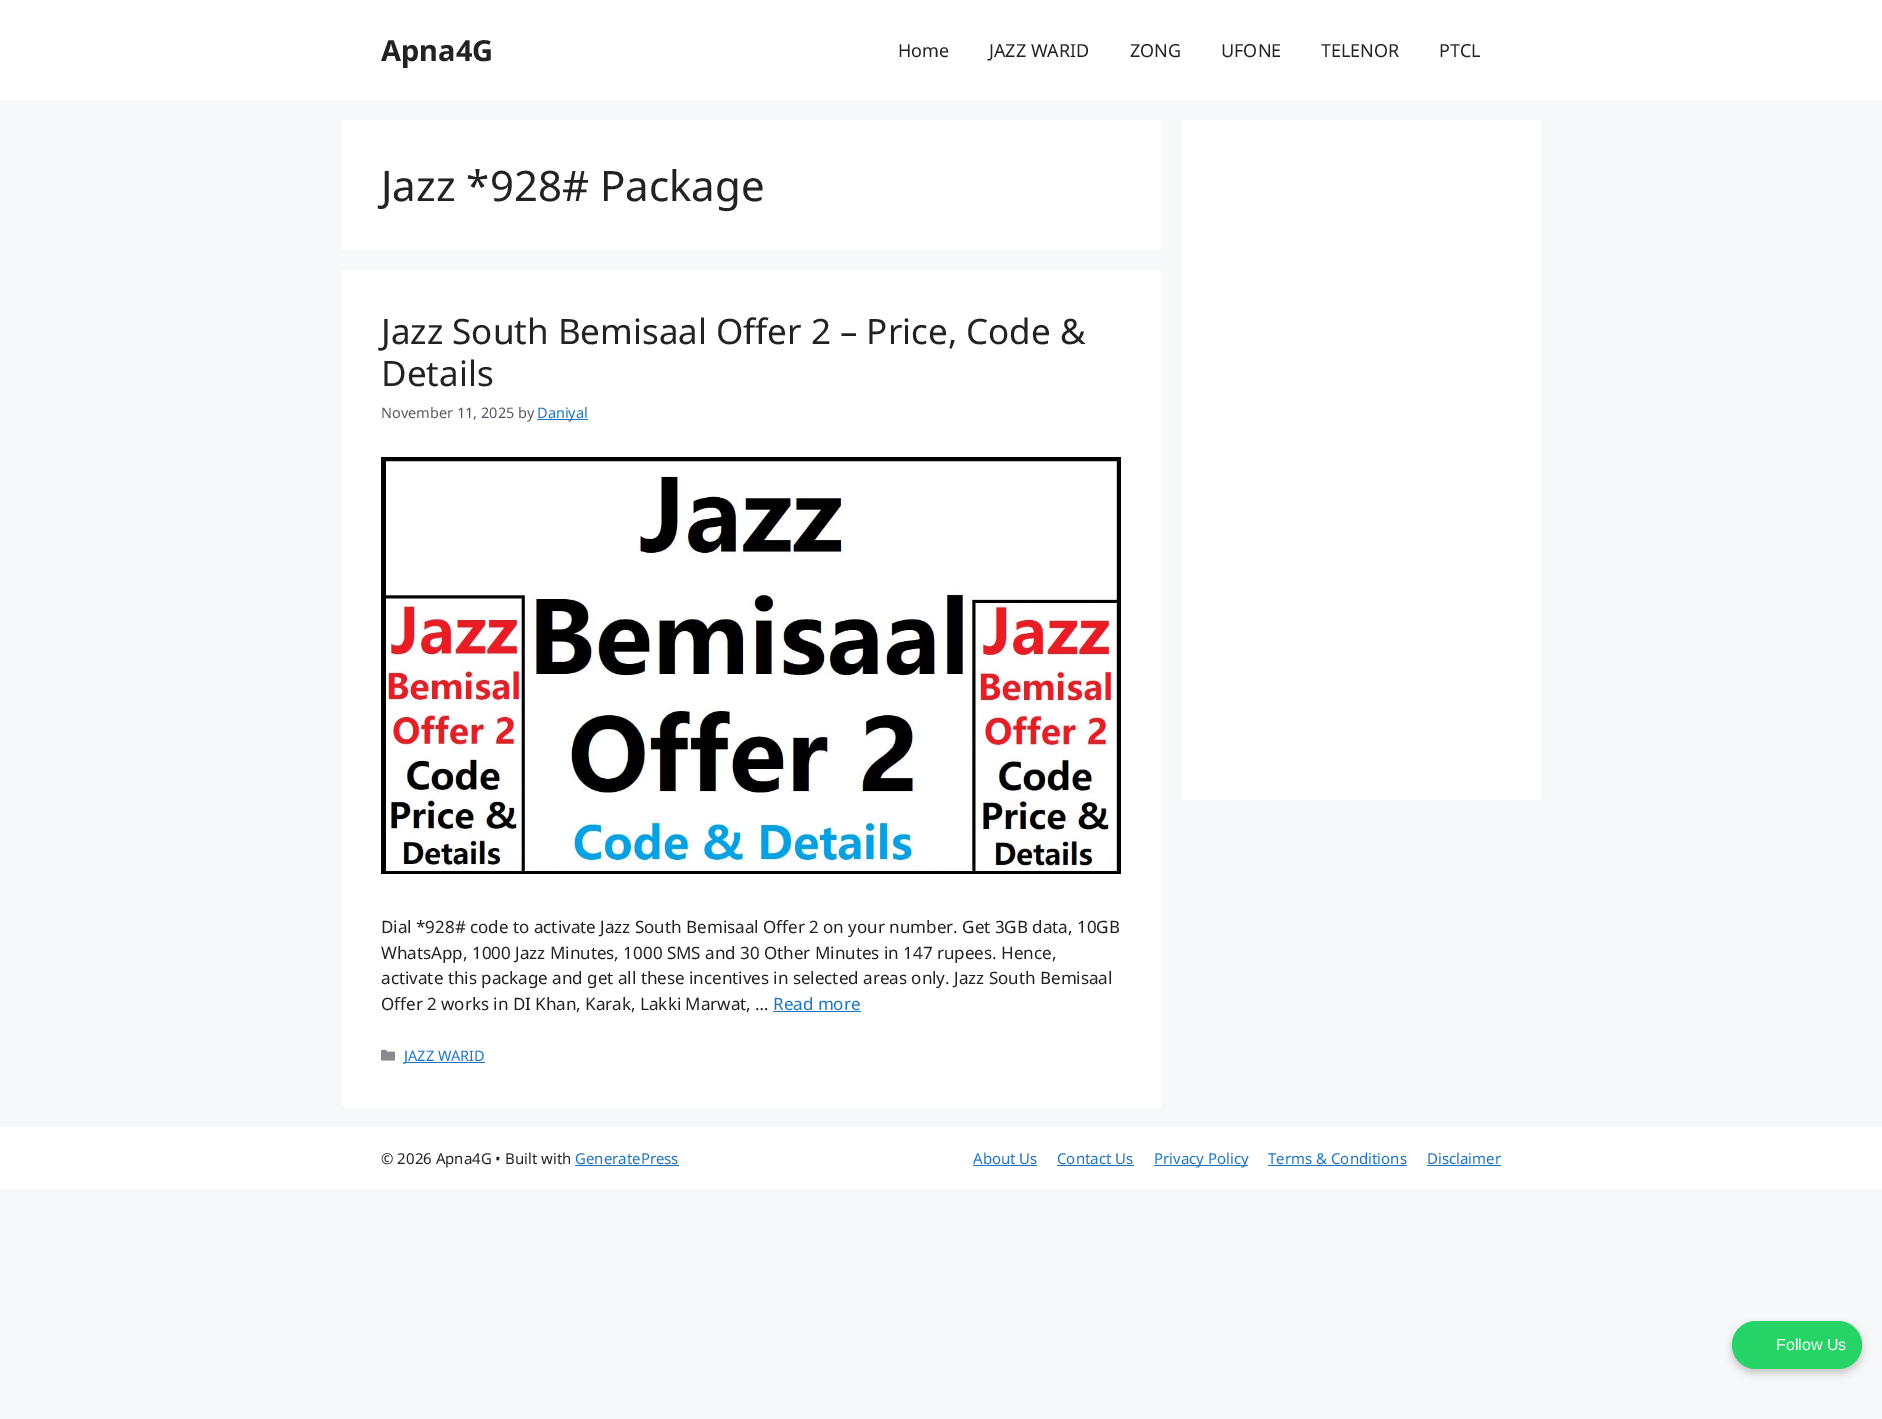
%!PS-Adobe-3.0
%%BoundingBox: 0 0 1882 1419
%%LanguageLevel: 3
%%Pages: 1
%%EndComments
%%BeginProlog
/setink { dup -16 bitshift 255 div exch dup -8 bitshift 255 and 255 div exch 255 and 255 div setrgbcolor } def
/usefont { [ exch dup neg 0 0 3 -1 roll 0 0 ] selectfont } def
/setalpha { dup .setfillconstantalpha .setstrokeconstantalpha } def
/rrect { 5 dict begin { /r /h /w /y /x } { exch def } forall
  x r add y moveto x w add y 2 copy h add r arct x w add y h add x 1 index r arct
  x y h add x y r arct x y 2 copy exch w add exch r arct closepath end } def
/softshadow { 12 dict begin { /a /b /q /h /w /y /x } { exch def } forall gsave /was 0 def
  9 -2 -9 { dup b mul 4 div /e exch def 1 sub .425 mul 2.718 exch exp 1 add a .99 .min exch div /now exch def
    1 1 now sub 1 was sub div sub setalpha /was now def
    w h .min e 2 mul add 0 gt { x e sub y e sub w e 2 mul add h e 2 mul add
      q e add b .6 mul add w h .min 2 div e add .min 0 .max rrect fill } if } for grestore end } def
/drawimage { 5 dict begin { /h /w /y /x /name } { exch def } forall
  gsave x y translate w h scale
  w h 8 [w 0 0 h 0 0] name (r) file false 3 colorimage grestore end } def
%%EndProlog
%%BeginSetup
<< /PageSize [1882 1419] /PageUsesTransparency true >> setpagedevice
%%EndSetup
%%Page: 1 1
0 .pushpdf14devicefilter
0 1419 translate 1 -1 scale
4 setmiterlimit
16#F7F8F9 setink
0 0 1882 1419 rectfill
16#FFFFFF setink
0 0 1882 100 rectfill
/NotoSans-Bold 29 usefont
16#222222 setink
381 61 moveto (Apna4G) show
/NotoSans-Regular 18 usefont
[
    [(Home) 898 57]
    [(JAZZ WARID) 989 57]
    [(ZONG) 1130 57]
    [(UFONE) 1221 57]
    [(TELENOR) 1321 57]
    [(PTCL) 1439 57]
] { aload pop moveto show } forall
16#FFFFFF setink
341 120 820 130 rectfill
/NotoSans-Regular 42 usefont
16#222222 setink
381 201 moveto (Jazz *928# Package) show
16#FFFFFF setink
341 270 820 837 rectfill
/NotoSans-Regular 35 usefont
16#222222 setink
381 344 moveto (Jazz South Bemisaal Offer 2 – Price, Code &) show
381 386 moveto (Details) show
/NotoSans-Regular 14.5 usefont
16#575760 setink
381 418 moveto (November 11, 2025 by) show
16#1E73BE setink
537 419 51 1 rectfill
537 418 moveto (Daniyal) show
(img1.raw) 381 457 740 417 drawimage
/NotoSans-Regular 17 usefont
16#222222 setink
[
    [(Dial *928# code to activate Jazz South Bemisaal Offer 2 on your number. Get 3GB data, 10GB) 381 933]
    [(WhatsApp, 1000 Jazz Minutes, 1000 SMS and 30 Other Minutes in 147 rupees. Hence,) 381 959]
    [(activate this package and get all these incentives in selected areas only. Jazz South Bemisaal) 381 984]
    [(Offer 2 works in DI Khan, Karak, Lakki Marwat, …) 381 1010]
] { aload pop moveto show } forall
16#1E73BE setink
773 1010 moveto (Read more) show
773 1011 88 1 rectfill
(img2.raw) 381 1049 14 12 drawimage
404 1062 81 1 rectfill
/NotoSans-Regular 14.5 usefont
404 1061 moveto (JAZZ WARID) show
16#FFFFFF setink
1181 120 360 680 rectfill
0 1127 1882 62 rectfill
/NotoSans-Regular 15 usefont
16#222222 setink
381 1164 moveto (© 2026 Apna4G • Built with) show
16#1E73BE setink
575 1164 moveto (GeneratePress) show
575 1165 104 1 rectfill
973 1164 moveto (About Us) show
973 1165 64 1 rectfill
1057 1164 moveto (Contact Us) show
1057 1165 77 1 rectfill
1154 1165 94 1 rectfill
1154 1164 moveto (Privacy Policy) show
1268 1164 moveto (Terms & Conditions) show
1268 1165 139 1 rectfill
1427 1164 moveto (Disclaimer) show
1427 1165 74 1 rectfill
16#000000 setink
1732 1325 130 48 24 4 0.2 softshadow
16#25D366 setink
1732 1321 130 48 24 rrect fill
/LiberationSans-Regular 16 usefont
16#FFFFFF setink
1776 1350 moveto (Follow Us) show
.poppdf14devicefilter showpage
%%EOF
